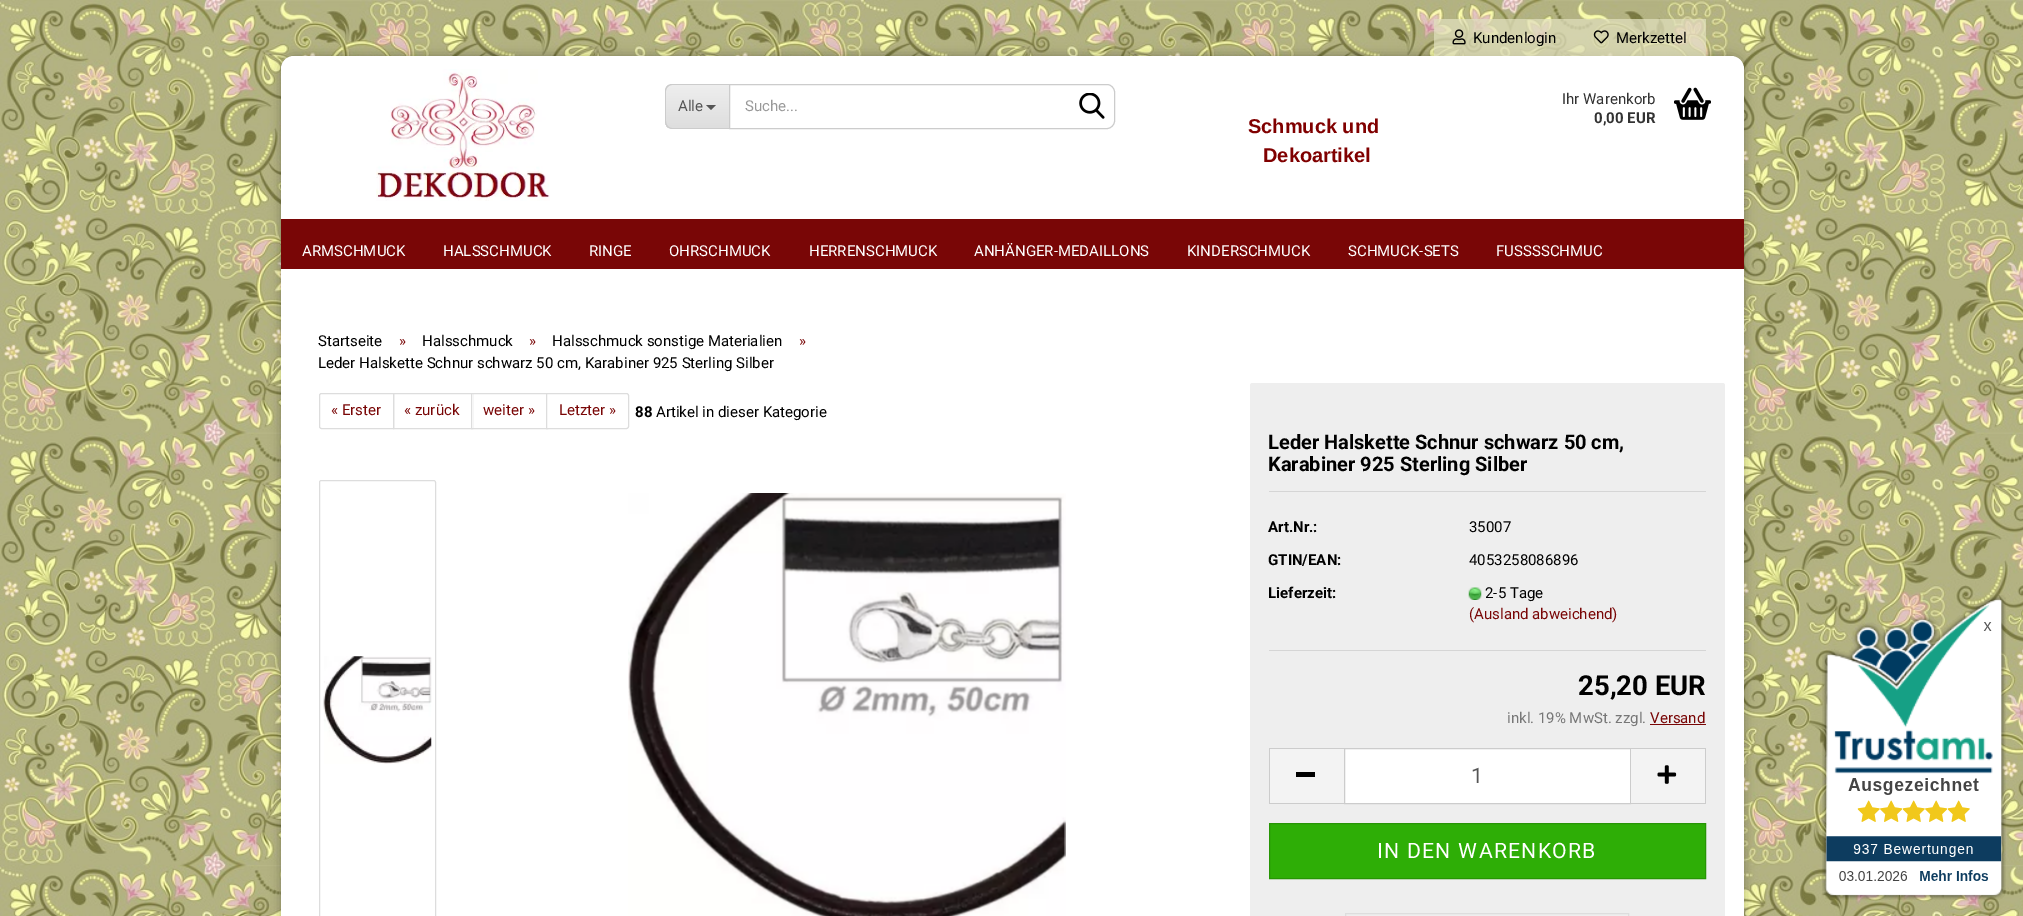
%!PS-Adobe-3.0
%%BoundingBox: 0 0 2023 916
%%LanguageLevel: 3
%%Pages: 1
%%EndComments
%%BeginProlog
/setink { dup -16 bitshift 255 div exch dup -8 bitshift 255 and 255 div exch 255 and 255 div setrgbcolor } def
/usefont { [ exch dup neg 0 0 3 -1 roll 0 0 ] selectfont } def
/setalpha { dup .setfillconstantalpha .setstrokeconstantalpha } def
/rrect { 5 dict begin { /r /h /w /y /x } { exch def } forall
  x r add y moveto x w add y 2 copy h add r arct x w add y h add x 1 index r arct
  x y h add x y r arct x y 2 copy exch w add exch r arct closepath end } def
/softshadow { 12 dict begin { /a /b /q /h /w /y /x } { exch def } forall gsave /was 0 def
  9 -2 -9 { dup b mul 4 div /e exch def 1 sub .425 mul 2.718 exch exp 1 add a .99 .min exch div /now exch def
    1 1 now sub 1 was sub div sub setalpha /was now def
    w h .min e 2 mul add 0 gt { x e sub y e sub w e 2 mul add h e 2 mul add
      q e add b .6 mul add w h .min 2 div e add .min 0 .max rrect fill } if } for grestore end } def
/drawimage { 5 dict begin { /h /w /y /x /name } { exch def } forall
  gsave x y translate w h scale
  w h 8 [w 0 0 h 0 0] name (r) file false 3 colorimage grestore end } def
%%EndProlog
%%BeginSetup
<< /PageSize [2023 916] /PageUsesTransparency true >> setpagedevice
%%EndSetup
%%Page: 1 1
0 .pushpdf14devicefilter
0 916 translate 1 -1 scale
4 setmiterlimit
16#FFFFFF setink
0 0 2023 916 rectfill
(img1.raw) 0 0 2023 916 drawimage
16#000000 setink
281 56 1463 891 13 6 0.3 softshadow
16#FFFFFF setink
281 56 1463 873 13 rrect fill
0.73 setalpha
16#E0DFBD setink
1434 19 272 37 rectfill
1 setalpha
(img2.raw) 1452 29 14 16 drawimage
/Roboto-Regular 15 usefont
16#000000 setink
1473 43 moveto (Kundenlogin) show
(img3.raw) 1593 30 16 14 drawimage
1616 43 moveto (Merkzettel) show
(img4.raw) 376 69 174 132 drawimage
gsave
673 84 moveto 729 84 lineto 729 129 lineto 673 129 lineto 668.5 129 665 125.5 665 121 curveto 665 92 lineto 665 87.5 668.5 84 673 84 curveto closepath clip newpath
gsave 665 85 moveto 729 85 lineto 729 128 lineto 665 128 lineto closepath clip newpath
<< /ShadingType 2 /ColorSpace /DeviceRGB /Coords [698 85 698 128] /Extend [true true] /Function << /FunctionType 2 /Domain [0 1] /C0 [0.933 0.933 0.933] /C1 [0.871 0.871 0.871] /N 1 >> >> shfill grestore
grestore
16#CCCCCC setink
672 84 moveto 729 84 lineto 729 129 lineto 672 129 lineto 668 129 665 125 665 121 curveto 665 91 lineto 665 87 668 84 672 84 curveto closepath 672 85 moveto 729 85 lineto 729 128 lineto 672 128 lineto 669 128 666 125 666 121 curveto 666 91 lineto 666 88 669 85 672 85 curveto closepath eofill
16#555555 setink
678 111 moveto (Alle) show
706 105 moveto 716 105 lineto 711 110 lineto closepath fill
16#CCCCCC setink
729.5 84.5 moveto 1107 84.5 lineto 1111 84.5 1114.5 88 1114.5 92 curveto 1114.5 121 lineto 1114.5 125 1111 128.5 1107 128.5 curveto 729.5 128.5 lineto closepath stroke
16#999999 setink
745 111 moveto (Suche...) show
(img5.raw) 1079 93 26 26 drawimage
16#333333 setink
1562 104 moveto (Ihr Warenkorb) show
/Roboto-Bold 15 usefont
1594 123 moveto (0,00 EUR) show
(img6.raw) 1674 87 37 33 drawimage
/LiberationSans-Bold 20 usefont
16#800000 setink
1248 133 moveto (Schmuck und) show
1263 162 moveto (Dekoartikel) show
16#790606 setink
281 219 1463 50 rectfill
/Roboto-Regular 15 usefont
16#FFFFFF setink
[
    [(ARMSCHMUCK) 302 256]
    [(HALSSCHMUCK) 443 256]
    [(RINGE) 589 256]
    [(OHRSCHMUCK) 669 256]
    [(HERRENSCHMUCK) 809 256]
    [(ANHÄNGER-MEDAILLONS) 974 256]
    [(KINDERSCHMUCK) 1187 256]
    [(SCHMUCK-SETS) 1348 256]
    [(FUSSSSCHMUC) 1496 256]
] { aload pop moveto show } forall
16#000000 setink
318 346 moveto (Startseite) show
16#790606 setink
399 346 moveto (») show
16#000000 setink
422 346 moveto (Halsschmuck) show
16#790606 setink
529 346 moveto (») show
16#000000 setink
552 346 moveto (Halsschmuck sonstige Materialien) show
16#790606 setink
799 346 moveto (») show
16#000000 setink
318 368 moveto (Leder Halskette Schnur schwarz 50 cm, Karabiner 925 Sterling Silber) show
16#DDDDDD setink
321.5 393.5 moveto 393.5 393.5 lineto 393.5 428.5 lineto 321.5 428.5 lineto 320.5 428.5 319.5 427.5 319.5 426.5 curveto 319.5 395.5 lineto 319.5 394.5 320.5 393.5 321.5 393.5 curveto closepath stroke
16#790606 setink
331 415 moveto (« Erster) show
16#DDDDDD setink
393.5 393.5 79 35 rectstroke
16#790606 setink
404 415 moveto (« zurück) show
16#FFFFFF setink
472 394 1 34 rectfill
16#DDDDDD setink
471.5 393.5 76 35 rectstroke
16#790606 setink
483 415 moveto (weiter ») show
16#FFFFFF setink
546.5 393.5 moveto 626.5 393.5 lineto 627.5 393.5 628.5 394.5 628.5 395.5 curveto 628.5 426.5 lineto 628.5 427.5 627.5 428.5 626.5 428.5 curveto 546.5 428.5 lineto closepath gsave fill grestore
16#DDDDDD setink
stroke
16#790606 setink
559 415 moveto (Letzter ») show
/Roboto-Bold 15 usefont
16#000000 setink
635 417 moveto (88) show
/Roboto-Regular 15 usefont
656 417 moveto (Artikel in dieser Kategorie) show
16#DDDDDD setink
319.5 480.5 116 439 2 rrect stroke
(img7.raw) 323 656 109 108 drawimage
(img8.raw) 628 493 438 423 drawimage
16#EEEEEE setink
1250 383 475 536 2.5 rrect fill
16#D5D5D5 setink
1269 491 437 1 rectfill
/Roboto-Bold 20 usefont
16#000000 setink
1268 449 moveto (Leder Halskette Schnur schwarz 50 cm,) show
1268 471 moveto (Karabiner 925 Sterling Silber) show
16#D5D5D5 setink
1269 650 437 1 rectfill
/Roboto-Bold 15 usefont
16#000000 setink
1268 532 moveto (Art.Nr.:) show
/Roboto-Regular 15 usefont
1469 532 moveto (35007) show
/Roboto-Bold 15 usefont
1268 565 moveto (GTIN/EAN:) show
/Roboto-Regular 15 usefont
1469 565 moveto (4053258086896) show
/Roboto-Bold 15 usefont
1268 598 moveto (Lieferzeit:) show
(img9.raw) 1468 587 14 13 drawimage
/Roboto-Regular 15 usefont
1485 598 moveto (2-5 Tage) show
16#790606 setink
1469 619 moveto (\(Ausland abweichend\)) show
/Roboto-Bold 27.5 usefont
16#000000 setink
1578 695 moveto (25,20 EUR) show
/Roboto-Regular 15 usefont
16#777777 setink
1507 723 moveto (inkl. 19% MwSt. zzgl.) show
16#790606 setink
1650 723 moveto (Versand) show
[
    [1650 724 56 1 16#790606]
    [1270 749 74 54 16#F3F3F3]
    [1269 748 75 1 16#CCCCCC]
    [1269 803 75 1 16#CCCCCC]
    [1269 748 1 56 16#CCCCCC]
    [1296 772 19 5 16#000000]
] { aload pop setink rectfill } forall
16#FFFFFF setink
1344.5 748.5 moveto 1630.5 748.5 lineto 1630.5 803.5 lineto 1344.5 803.5 lineto closepath gsave fill grestore
16#CCCCCC setink
stroke
/Roboto-Regular 21.25 usefont
16#555555 setink
1471 783 moveto (1) show
[
    [1631 749 74 54 16#F3F3F3]
    [1631 748 75 1 16#CCCCCC]
    [1705 748 1 56 16#CCCCCC]
    [1631 803 75 1 16#CCCCCC]
] { aload pop setink rectfill } forall
(img10.raw) 1657 765 20 19 drawimage
16#2EAE06 setink
1269.5 823.5 moveto 1705.5 823.5 lineto 1705.5 878.5 lineto 1269.5 878.5 lineto closepath gsave fill grestore
16#279505 setink
stroke
16#FFFFFF setink
1377 858 moveto 1.25 0 (IN DEN WARENKORB) ashow
16#DDDDDD setink
1345.5 913.5 283 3 rectstroke
(img11.raw) 1822 595 184 305 drawimage
.poppdf14devicefilter showpage
%%EOF
